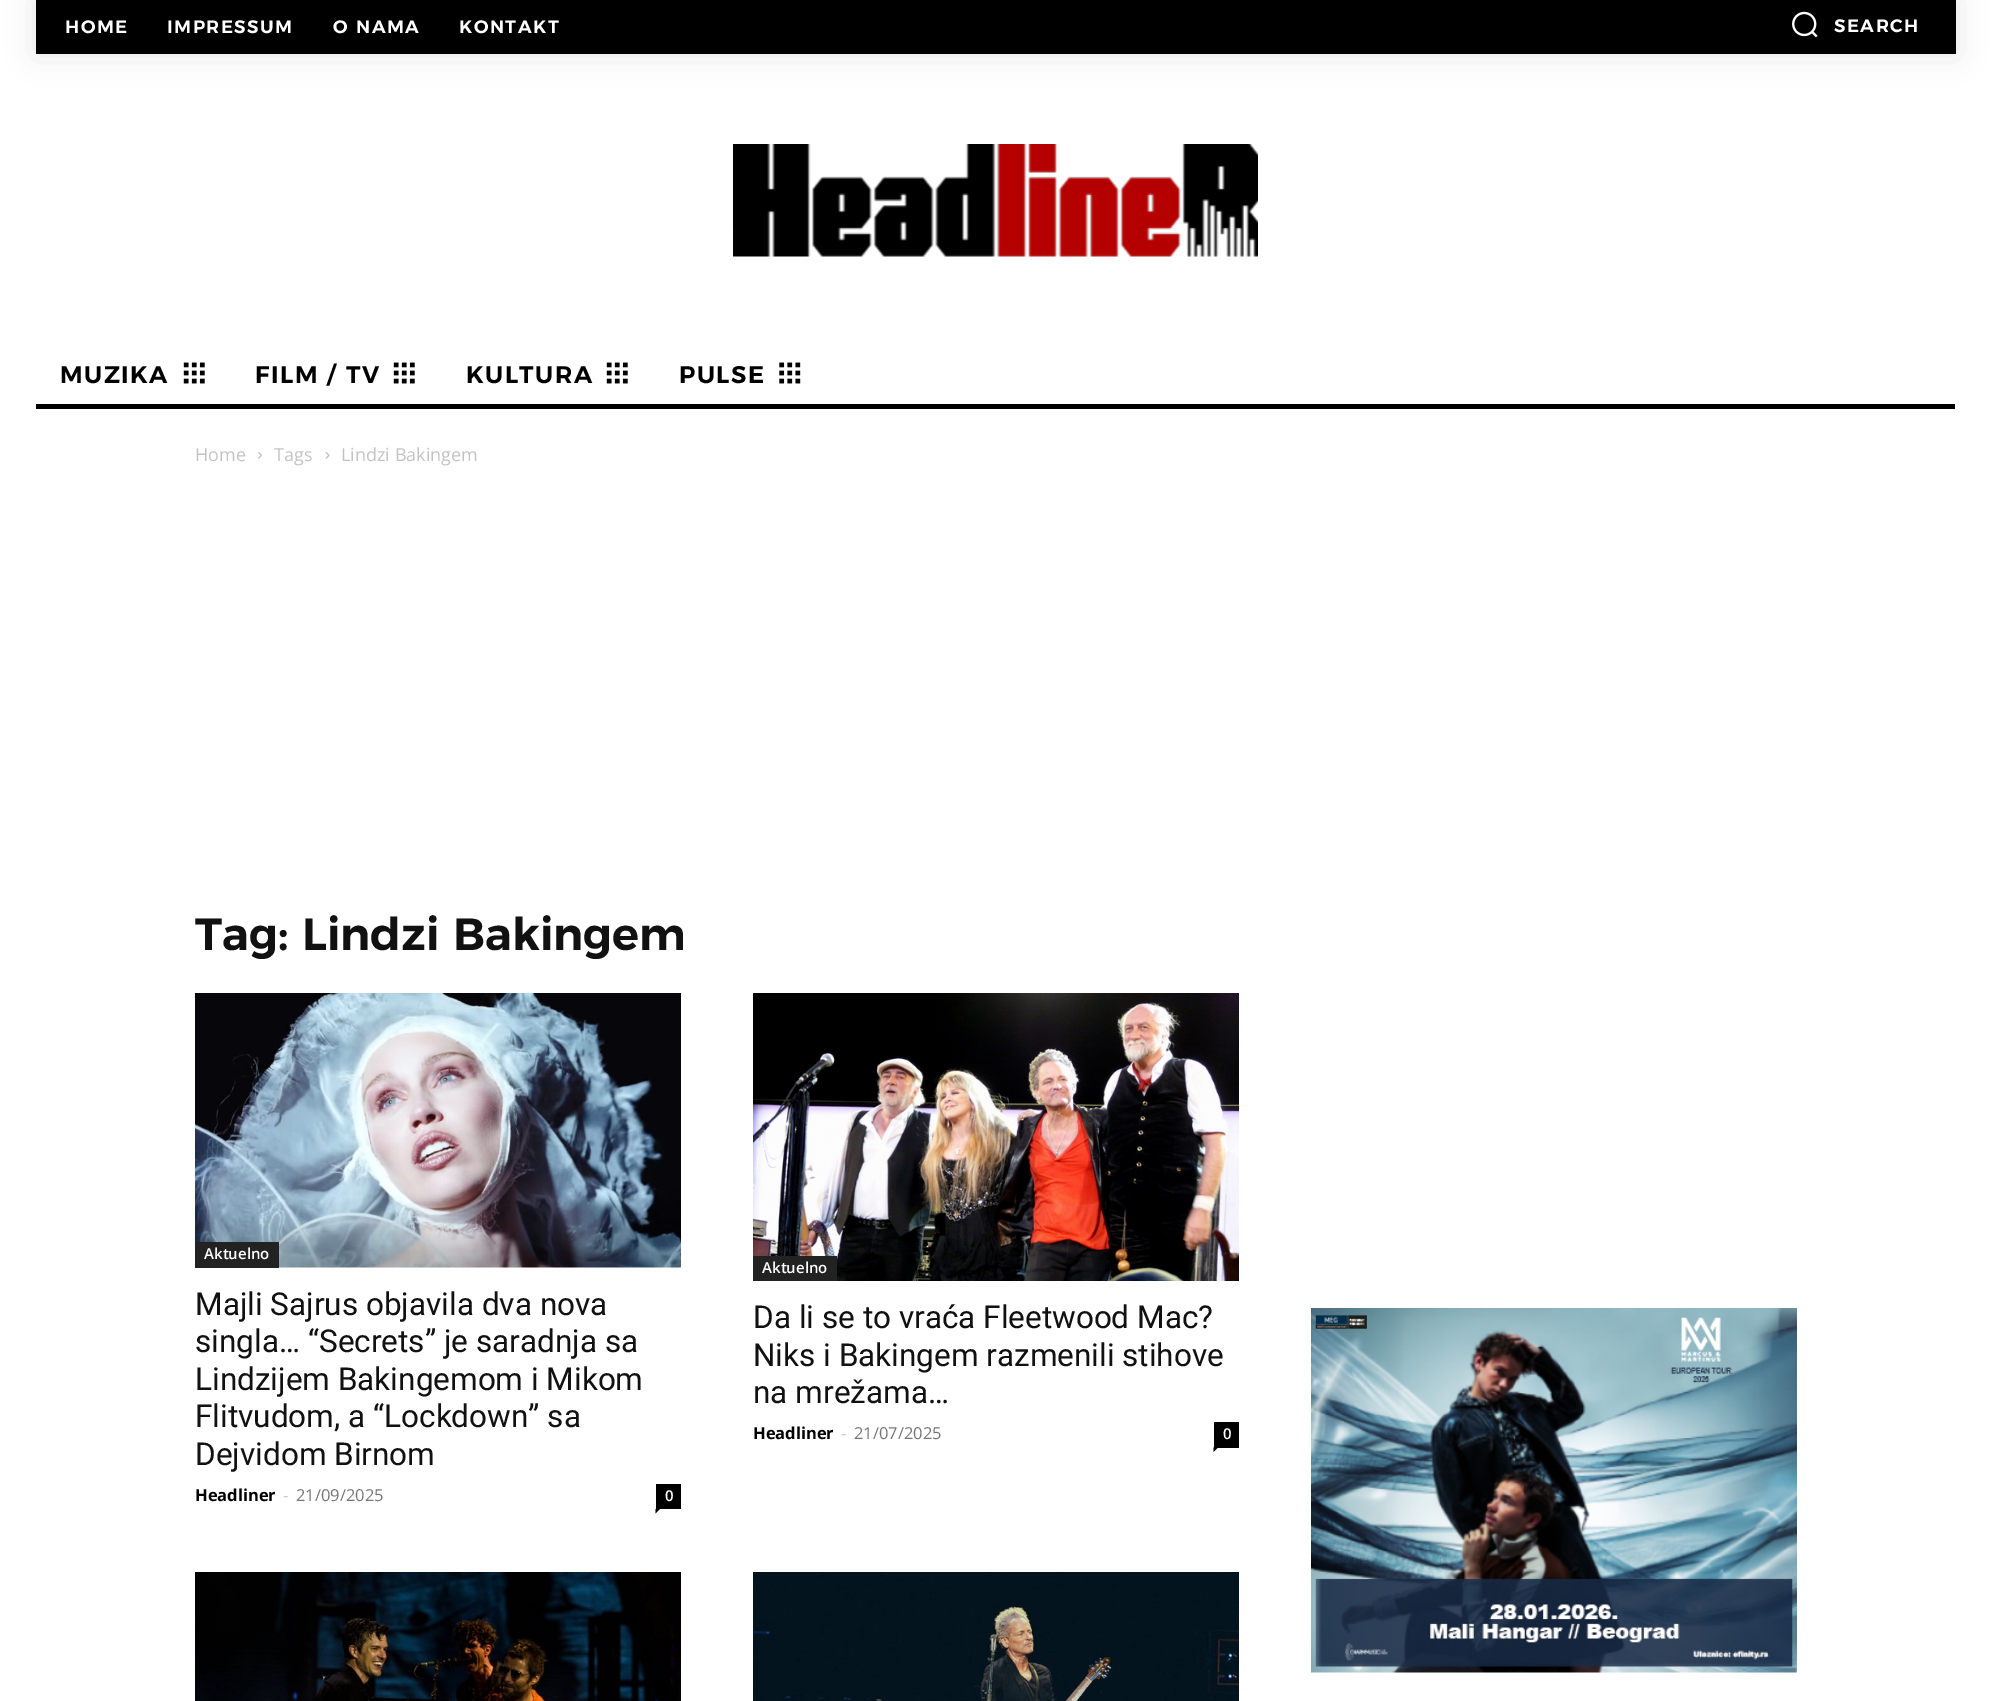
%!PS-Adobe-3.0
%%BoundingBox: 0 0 1992 1701
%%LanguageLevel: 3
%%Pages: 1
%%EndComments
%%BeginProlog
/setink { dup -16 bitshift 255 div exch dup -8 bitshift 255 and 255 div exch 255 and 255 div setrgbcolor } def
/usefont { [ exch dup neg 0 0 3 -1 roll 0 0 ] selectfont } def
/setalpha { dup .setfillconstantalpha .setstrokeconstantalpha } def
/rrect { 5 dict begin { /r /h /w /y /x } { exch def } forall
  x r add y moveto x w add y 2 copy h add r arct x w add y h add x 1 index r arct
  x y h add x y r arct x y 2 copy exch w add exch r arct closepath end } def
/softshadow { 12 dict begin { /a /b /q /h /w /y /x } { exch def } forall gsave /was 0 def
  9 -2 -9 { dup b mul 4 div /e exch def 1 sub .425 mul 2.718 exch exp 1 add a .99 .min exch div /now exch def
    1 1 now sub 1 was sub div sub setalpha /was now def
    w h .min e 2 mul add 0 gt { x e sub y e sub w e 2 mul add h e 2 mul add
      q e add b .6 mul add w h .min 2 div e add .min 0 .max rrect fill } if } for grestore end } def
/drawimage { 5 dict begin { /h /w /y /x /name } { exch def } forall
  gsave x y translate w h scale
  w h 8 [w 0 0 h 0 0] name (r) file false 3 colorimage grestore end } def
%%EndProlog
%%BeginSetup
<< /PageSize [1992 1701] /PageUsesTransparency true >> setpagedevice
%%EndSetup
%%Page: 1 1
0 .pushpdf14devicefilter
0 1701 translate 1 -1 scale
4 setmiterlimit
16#FFFFFF setink
0 0 1992 1701 rectfill
16#000000 setink
36 0 1920 54 0 15 0.1 softshadow
36 0 1920 54 rectfill
/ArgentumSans-SemiBold 18 usefont
16#FFFFFF setink
65 33 moveto 1.5 0 (HOME) ashow
167 33 moveto 1.5 0 (IMPRESSUM) ashow
333 33 moveto 1.5 0 (O NAMA) ashow
459 33 moveto 1.5 0 (KONTAKT) ashow
(img1.raw) 1792 11 26 27 drawimage
1834 32 moveto 1.5 0 (SEARCH) ashow
(img2.raw) 733 144 525 113 drawimage
/ArgentumSans-SemiBold 24 usefont
16#000000 setink
60 383 moveto 1.5 0 (MUZIKA) ashow
(img3.raw) 183 362 22 22 drawimage
255 383 moveto 1.5 0 (FILM / TV) ashow
(img3.raw) 393 362 22 22 drawimage
466 383 moveto 1.5 0 (KULTURA) ashow
(img3.raw) 606 362 22 22 drawimage
679 383 moveto 1.5 0 (PULSE) ashow
(img4.raw) 779 362 22 22 drawimage
36 404 1919 5 rectfill
/OpenSans-Regular 18 usefont
16#C3C3C3 setink
195 461 moveto (Home) show
(img5.raw) 258 452 4 7 drawimage
274 461 moveto (Tags) show
(img6.raw) 325 452 5 7 drawimage
341 461 moveto (Lindzi Bakingem) show
/ArgentumSans-SemiBold 45 usefont
16#111111 setink
195 950 moveto (Tag: Lindzi Bakingem) show
(img7.raw) 195 993 486 275 drawimage
16#222222 setink
195 1242 84 26 rectfill
/OpenSans-SemiBold 15 usefont
16#FFFFFF setink
204 1259 moveto (Aktuelno) show
/Roboto-Regular 31.5 usefont
16#111111 setink
[
    [(Majli Sajrus objavila dva nova) 195 1315]
    [(singla… “Secrets” je saradnja sa) 195 1352]
    [(Lindzijem Bakingemom i Mikom) 195 1390]
    [(Flitvudom, a “Lockdown” sa) 195 1427]
    [(Dejvidom Birnom) 195 1465]
] { aload pop moveto show } forall
/OpenSans-Bold 16.5 usefont
16#000000 setink
195 1501 moveto (Headliner) show
/OpenSans-Regular 16.5 usefont
16#CCCCCC setink
283 1501 moveto (-) show
16#767676 setink
296 1501 moveto (21/09/2025) show
16#000000 setink
656 1484 25 25 rectfill
/OpenSans-SemiBold 15 usefont
16#FFFFFF setink
665 1501 moveto (0) show
16#000000 setink
655.5 1509 moveto 660 1509 lineto 655.5 1513.5 lineto closepath fill
(img8.raw) 753 993 486 288 drawimage
16#222222 setink
753 1256 84 25 rectfill
16#FFFFFF setink
762 1273 moveto (Aktuelno) show
/Roboto-Regular 31.5 usefont
16#111111 setink
[
    [(Da li se to vraća Fleetwood Mac?) 753 1328]
    [(Niks i Bakingem razmenili stihove) 753 1366]
    [(na mrežama…) 753 1403]
] { aload pop moveto show } forall
/OpenSans-Bold 16.5 usefont
16#000000 setink
753 1439 moveto (Headliner) show
/OpenSans-Regular 16.5 usefont
16#CCCCCC setink
841 1439 moveto (-) show
16#767676 setink
854 1439 moveto (21/07/2025) show
16#000000 setink
1214 1422 25 26 rectfill
/OpenSans-SemiBold 15 usefont
16#FFFFFF setink
1223 1439 moveto (0) show
16#000000 setink
1213.5 1447.5 moveto 1218 1447.5 lineto 1213.5 1452 lineto closepath fill
(img9.raw) 195 1572 486 129 drawimage
(img10.raw) 753 1572 486 129 drawimage
(img11.raw) 1311 1308 486 365 drawimage
.poppdf14devicefilter showpage
%%EOF
